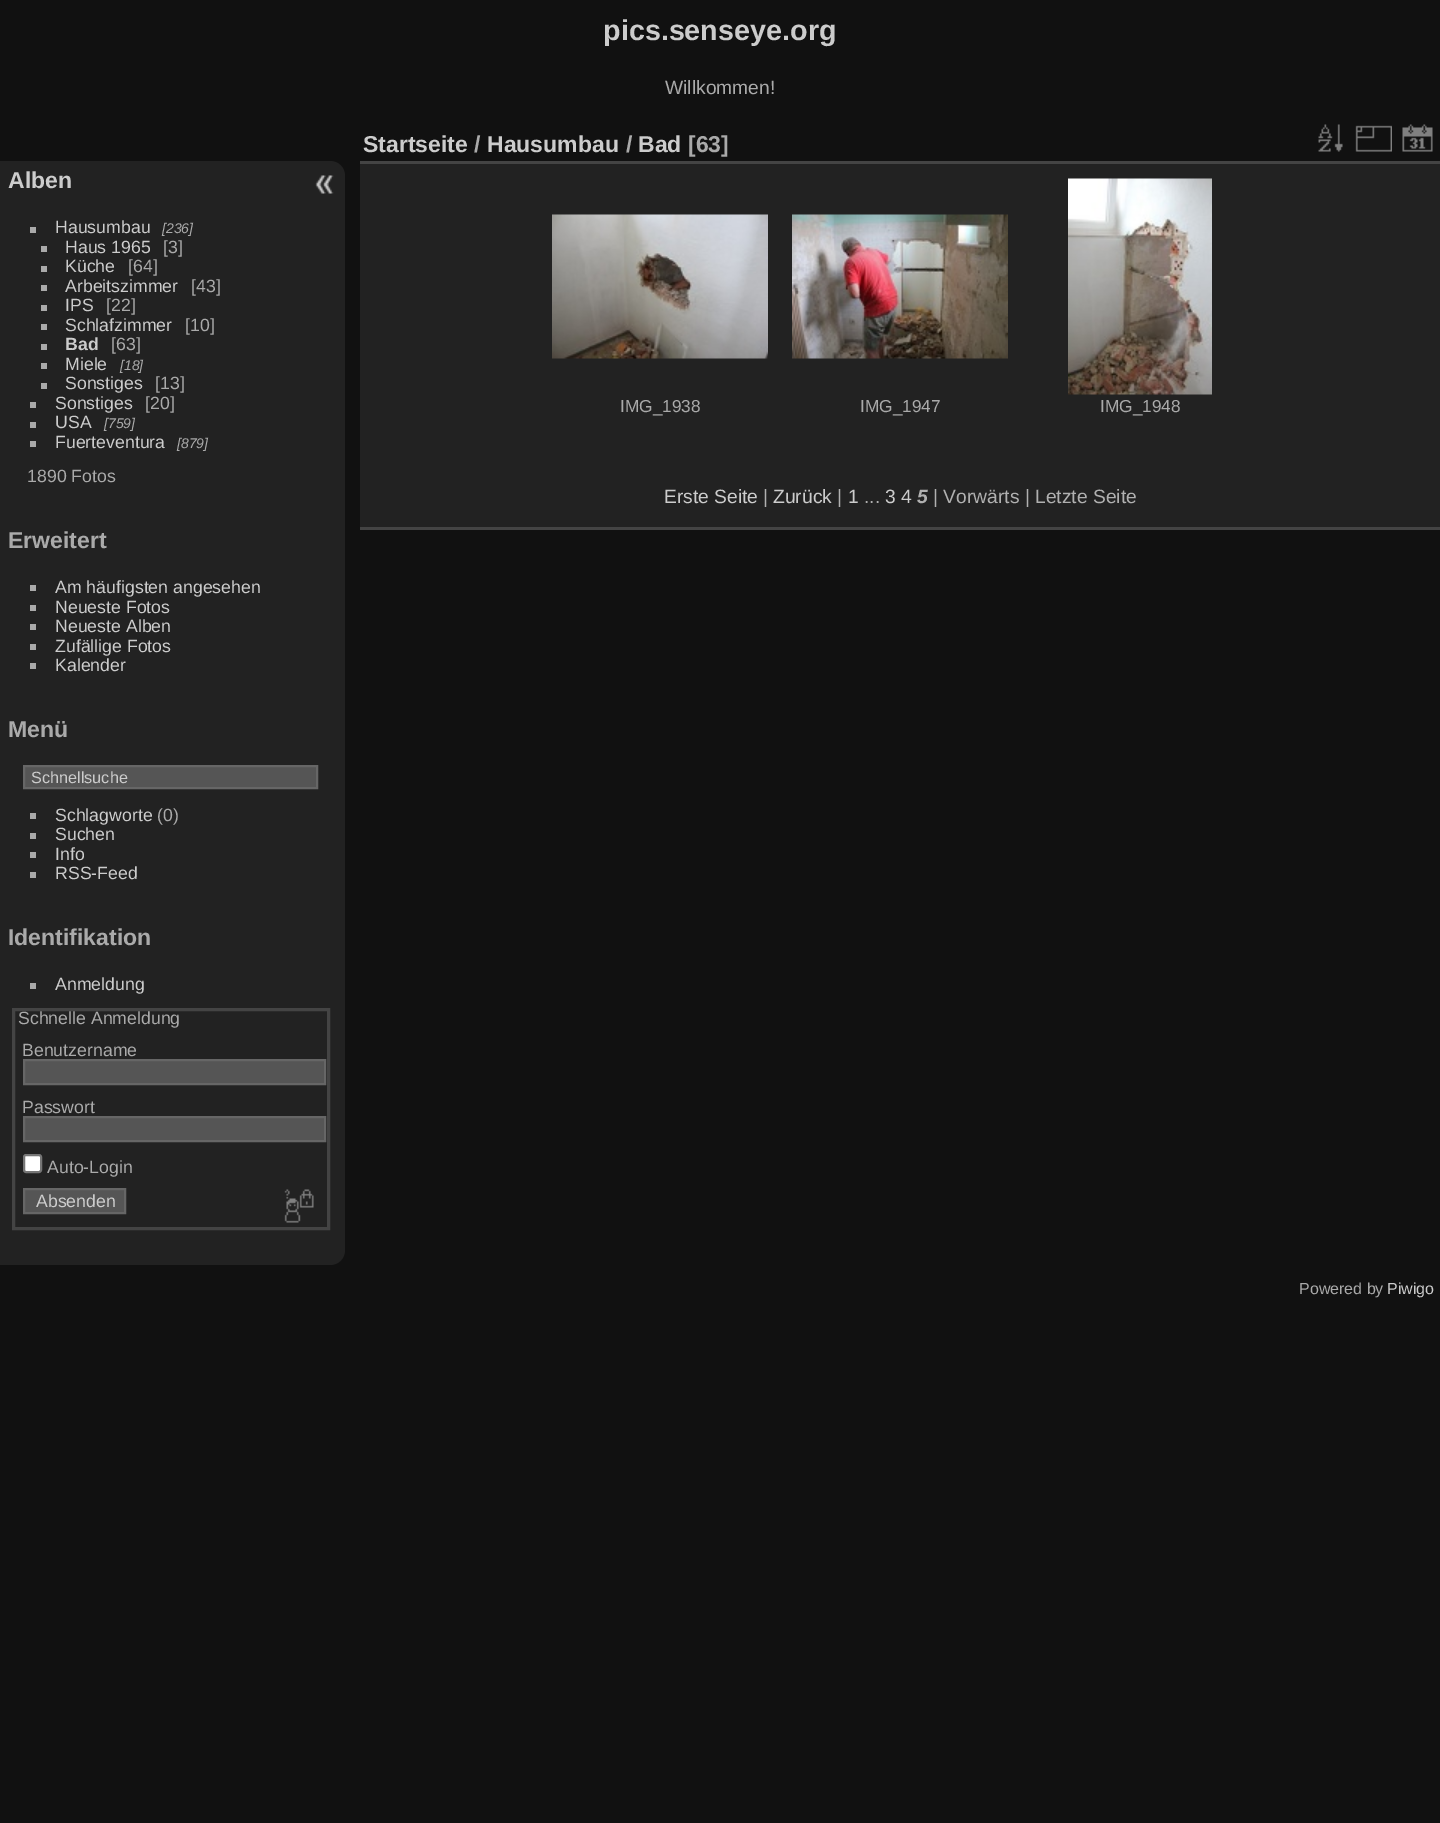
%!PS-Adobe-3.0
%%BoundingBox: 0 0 1440 1823
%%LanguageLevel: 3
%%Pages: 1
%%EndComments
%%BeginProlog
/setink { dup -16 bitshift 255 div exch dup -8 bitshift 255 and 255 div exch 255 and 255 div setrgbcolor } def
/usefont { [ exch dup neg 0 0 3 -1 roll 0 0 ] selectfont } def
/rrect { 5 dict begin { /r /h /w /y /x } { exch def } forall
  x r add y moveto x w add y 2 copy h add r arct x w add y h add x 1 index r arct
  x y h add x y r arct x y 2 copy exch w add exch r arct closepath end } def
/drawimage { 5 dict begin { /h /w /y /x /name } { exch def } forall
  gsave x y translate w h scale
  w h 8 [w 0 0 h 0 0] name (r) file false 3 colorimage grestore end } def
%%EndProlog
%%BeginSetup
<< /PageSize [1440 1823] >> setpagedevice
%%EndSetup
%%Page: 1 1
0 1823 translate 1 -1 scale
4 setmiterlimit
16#111111 setink
0 0 1440 1823 rectfill
/LiberationSans-Bold 28.75 usefont
16#CCCCCC setink
603 40 moveto (pics.senseye.org) show
/LiberationSans-Regular 19.25 usefont
16#AAAAAA setink
665 94 moveto (Willkommen!) show
16#222222 setink
0 161 moveto 330 161 lineto 338.5 161 345 167.5 345 176 curveto 345 1250 lineto 345 1258.5 338.5 1265 330 1265 curveto 0 1265 lineto closepath fill
/LiberationSans-Bold 23 usefont
16#CCCCCC setink
8 188 moveto (Alben) show
16#AAAAAA setink
30 227 6 6 rectfill
/LiberationSans-Regular 17.7 usefont
16#CCCCCC setink
55 233 moveto (Hausumbau) show
/LiberationSans-Italic 14 usefont
16#AAAAAA setink
162 233 moveto ([236]) show
41 246 6 6 rectfill
/LiberationSans-Regular 17.7 usefont
16#CCCCCC setink
65 253 moveto (Haus 1965) show
16#AAAAAA setink
163 253 moveto ([3]) show
41 266 6 6 rectfill
16#CCCCCC setink
65 272 moveto (Küche) show
16#AAAAAA setink
128 272 moveto ([64]) show
41 285 6 6 rectfill
16#CCCCCC setink
65 292 moveto (Arbeitszimmer) show
16#AAAAAA setink
191 292 moveto ([43]) show
41 305 6 6 rectfill
16#CCCCCC setink
65 311 moveto (IPS) show
16#AAAAAA setink
106 311 moveto ([22]) show
41 324 6 6 rectfill
16#CCCCCC setink
65 331 moveto (Schlafzimmer) show
16#AAAAAA setink
185 331 moveto ([10]) show
41 344 6 6 rectfill
/LiberationSans-Bold 17.7 usefont
16#CCCCCC setink
65 350 moveto (Bad) show
/LiberationSans-Regular 17.7 usefont
16#AAAAAA setink
111 350 moveto ([63]) show
41 363 6 6 rectfill
16#CCCCCC setink
65 370 moveto (Miele) show
/LiberationSans-Italic 14 usefont
16#AAAAAA setink
120 370 moveto ([18]) show
41 383 6 6 rectfill
/LiberationSans-Regular 17.7 usefont
16#CCCCCC setink
65 389 moveto (Sonstiges) show
16#AAAAAA setink
155 389 moveto ([13]) show
30 402 6 6 rectfill
16#CCCCCC setink
55 409 moveto (Sonstiges) show
16#AAAAAA setink
145 409 moveto ([20]) show
30 422 6 6 rectfill
16#CCCCCC setink
55 428 moveto (USA) show
/LiberationSans-Italic 14 usefont
16#AAAAAA setink
104 428 moveto ([759]) show
30 441 6 6 rectfill
/LiberationSans-Regular 17.7 usefont
16#CCCCCC setink
55 448 moveto (Fuerteventura) show
/LiberationSans-Italic 14 usefont
16#AAAAAA setink
177 448 moveto ([879]) show
/LiberationSans-Regular 17.7 usefont
27 482 moveto (1890 Fotos) show
/LiberationSans-Bold 23 usefont
8 548 moveto (Erweitert) show
30 585 6 6 rectfill
/LiberationSans-Regular 17.7 usefont
16#CCCCCC setink
55 593 moveto (Am häufigsten angesehen) show
16#AAAAAA setink
30 605 6 6 rectfill
16#CCCCCC setink
55 613 moveto (Neueste Fotos) show
16#AAAAAA setink
30 624 6 6 rectfill
16#CCCCCC setink
55 632 moveto (Neueste Alben) show
16#AAAAAA setink
30 644 6 6 rectfill
16#CCCCCC setink
55 652 moveto (Zufällige Fotos) show
16#AAAAAA setink
30 663 6 6 rectfill
16#CCCCCC setink
55 671 moveto (Kalender) show
/LiberationSans-Bold 23 usefont
16#AAAAAA setink
8 737 moveto (Menü) show
16#555555 setink
24 766 moveto 317 766 lineto 317 788 lineto 24 788 lineto closepath gsave fill grestore
16#666666 setink
2 setlinewidth
stroke
/LiberationSans-Regular 16.25 usefont
16#CCCCCC setink
31 783 moveto (Schnellsuche) show
16#AAAAAA setink
30 813 6 6 rectfill
/LiberationSans-Regular 17.7 usefont
16#CCCCCC setink
55 821 moveto (Schlagworte) show
16#AAAAAA setink
157 821 moveto (\(0\)) show
30 833 6 6 rectfill
16#CCCCCC setink
55 840 moveto (Suchen) show
16#AAAAAA setink
30 852 6 6 rectfill
16#CCCCCC setink
55 860 moveto (Info) show
16#AAAAAA setink
30 872 6 6 rectfill
16#CCCCCC setink
55 879 moveto (RSS-Feed) show
/LiberationSans-Bold 23 usefont
16#AAAAAA setink
8 945 moveto (Identifikation) show
30 983 6 6 rectfill
/LiberationSans-Regular 17.7 usefont
16#CCCCCC setink
55 990 moveto (Anmeldung) show
16#444444 setink
3 setlinewidth
13.5 1009.5 315 219 rectstroke
16#AAAAAA setink
18 1024 moveto (Schnelle Anmeldung) show
22 1056 moveto (Benutzername) show
16#555555 setink
24 1060 moveto 325 1060 lineto 325 1084 lineto 24 1084 lineto closepath gsave fill grestore
16#666666 setink
2 setlinewidth
stroke
16#AAAAAA setink
22 1113 moveto (Passwort) show
16#555555 setink
24 1117 moveto 325 1117 lineto 325 1141 lineto 24 1141 lineto closepath gsave fill grestore
16#666666 setink
stroke
16#FFFFFF setink
24 1155 17 17 2 rrect gsave fill grestore
16#767676 setink
stroke
16#AAAAAA setink
47 1173 moveto (Auto-Login) show
16#555555 setink
24 1189 moveto 125 1189 lineto 125 1213 lineto 24 1213 lineto closepath gsave fill grestore
16#666666 setink
stroke
16#CCCCCC setink
36 1207 moveto (Absenden) show
(img1.raw) 284 1189 30 34 drawimage
(img2.raw) 315 175 19 19 drawimage
[
    [360 164 1080 363 16#222222]
    [360 527 1080 3 16#444444]
    [360 161 1080 3 16#444444]
] { aload pop setink rectfill } forall
/LiberationSans-Bold 23 usefont
16#CCCCCC setink
363 152 moveto (Startseite) show
16#AAAAAA setink
474 152 moveto (/) show
16#CCCCCC setink
487 152 moveto (Hausumbau) show
16#AAAAAA setink
626 152 moveto (/) show
16#CCCCCC setink
638 152 moveto (Bad) show
16#AAAAAA setink
688 152 moveto ([63]) show
(img3.raw) 1318 124 25 28 drawimage
(img4.raw) 1355 125 37 27 drawimage
(img5.raw) 1402 124 31 28 drawimage
(img6.raw) 552 214 216 145 drawimage
/LiberationSans-Regular 17.25 usefont
620 412 moveto (IMG_1938) show
(img7.raw) 792 214 216 145 drawimage
860 412 moveto (IMG_1947) show
(img8.raw) 1068 178 144 217 drawimage
1100 412 moveto (IMG_1948) show
/LiberationSans-Regular 19.25 usefont
16#CCCCCC setink
664 503 moveto (Erste Seite) show
16#B0B0B0 setink
763 503 moveto (|) show
16#CCCCCC setink
773 503 moveto (Zurück) show
16#B0B0B0 setink
837 503 moveto (|) show
16#CCCCCC setink
848 503 moveto (1) show
16#B0B0B0 setink
864 503 moveto (...) show
16#CCCCCC setink
885 503 moveto (3 4) show
/LiberationSans-BoldItalic 19.25 usefont
16#B0B0B0 setink
917 503 moveto (5) show
/LiberationSans-Regular 19.25 usefont
933 503 moveto (| Vorwärts | Letzte Seite) show
/LiberationSans-Regular 16 usefont
16#AAAAAA setink
1299 1294 moveto (Powered by) show
16#CCCCCC setink
1387 1294 moveto (Piwigo) show
showpage
%%EOF
